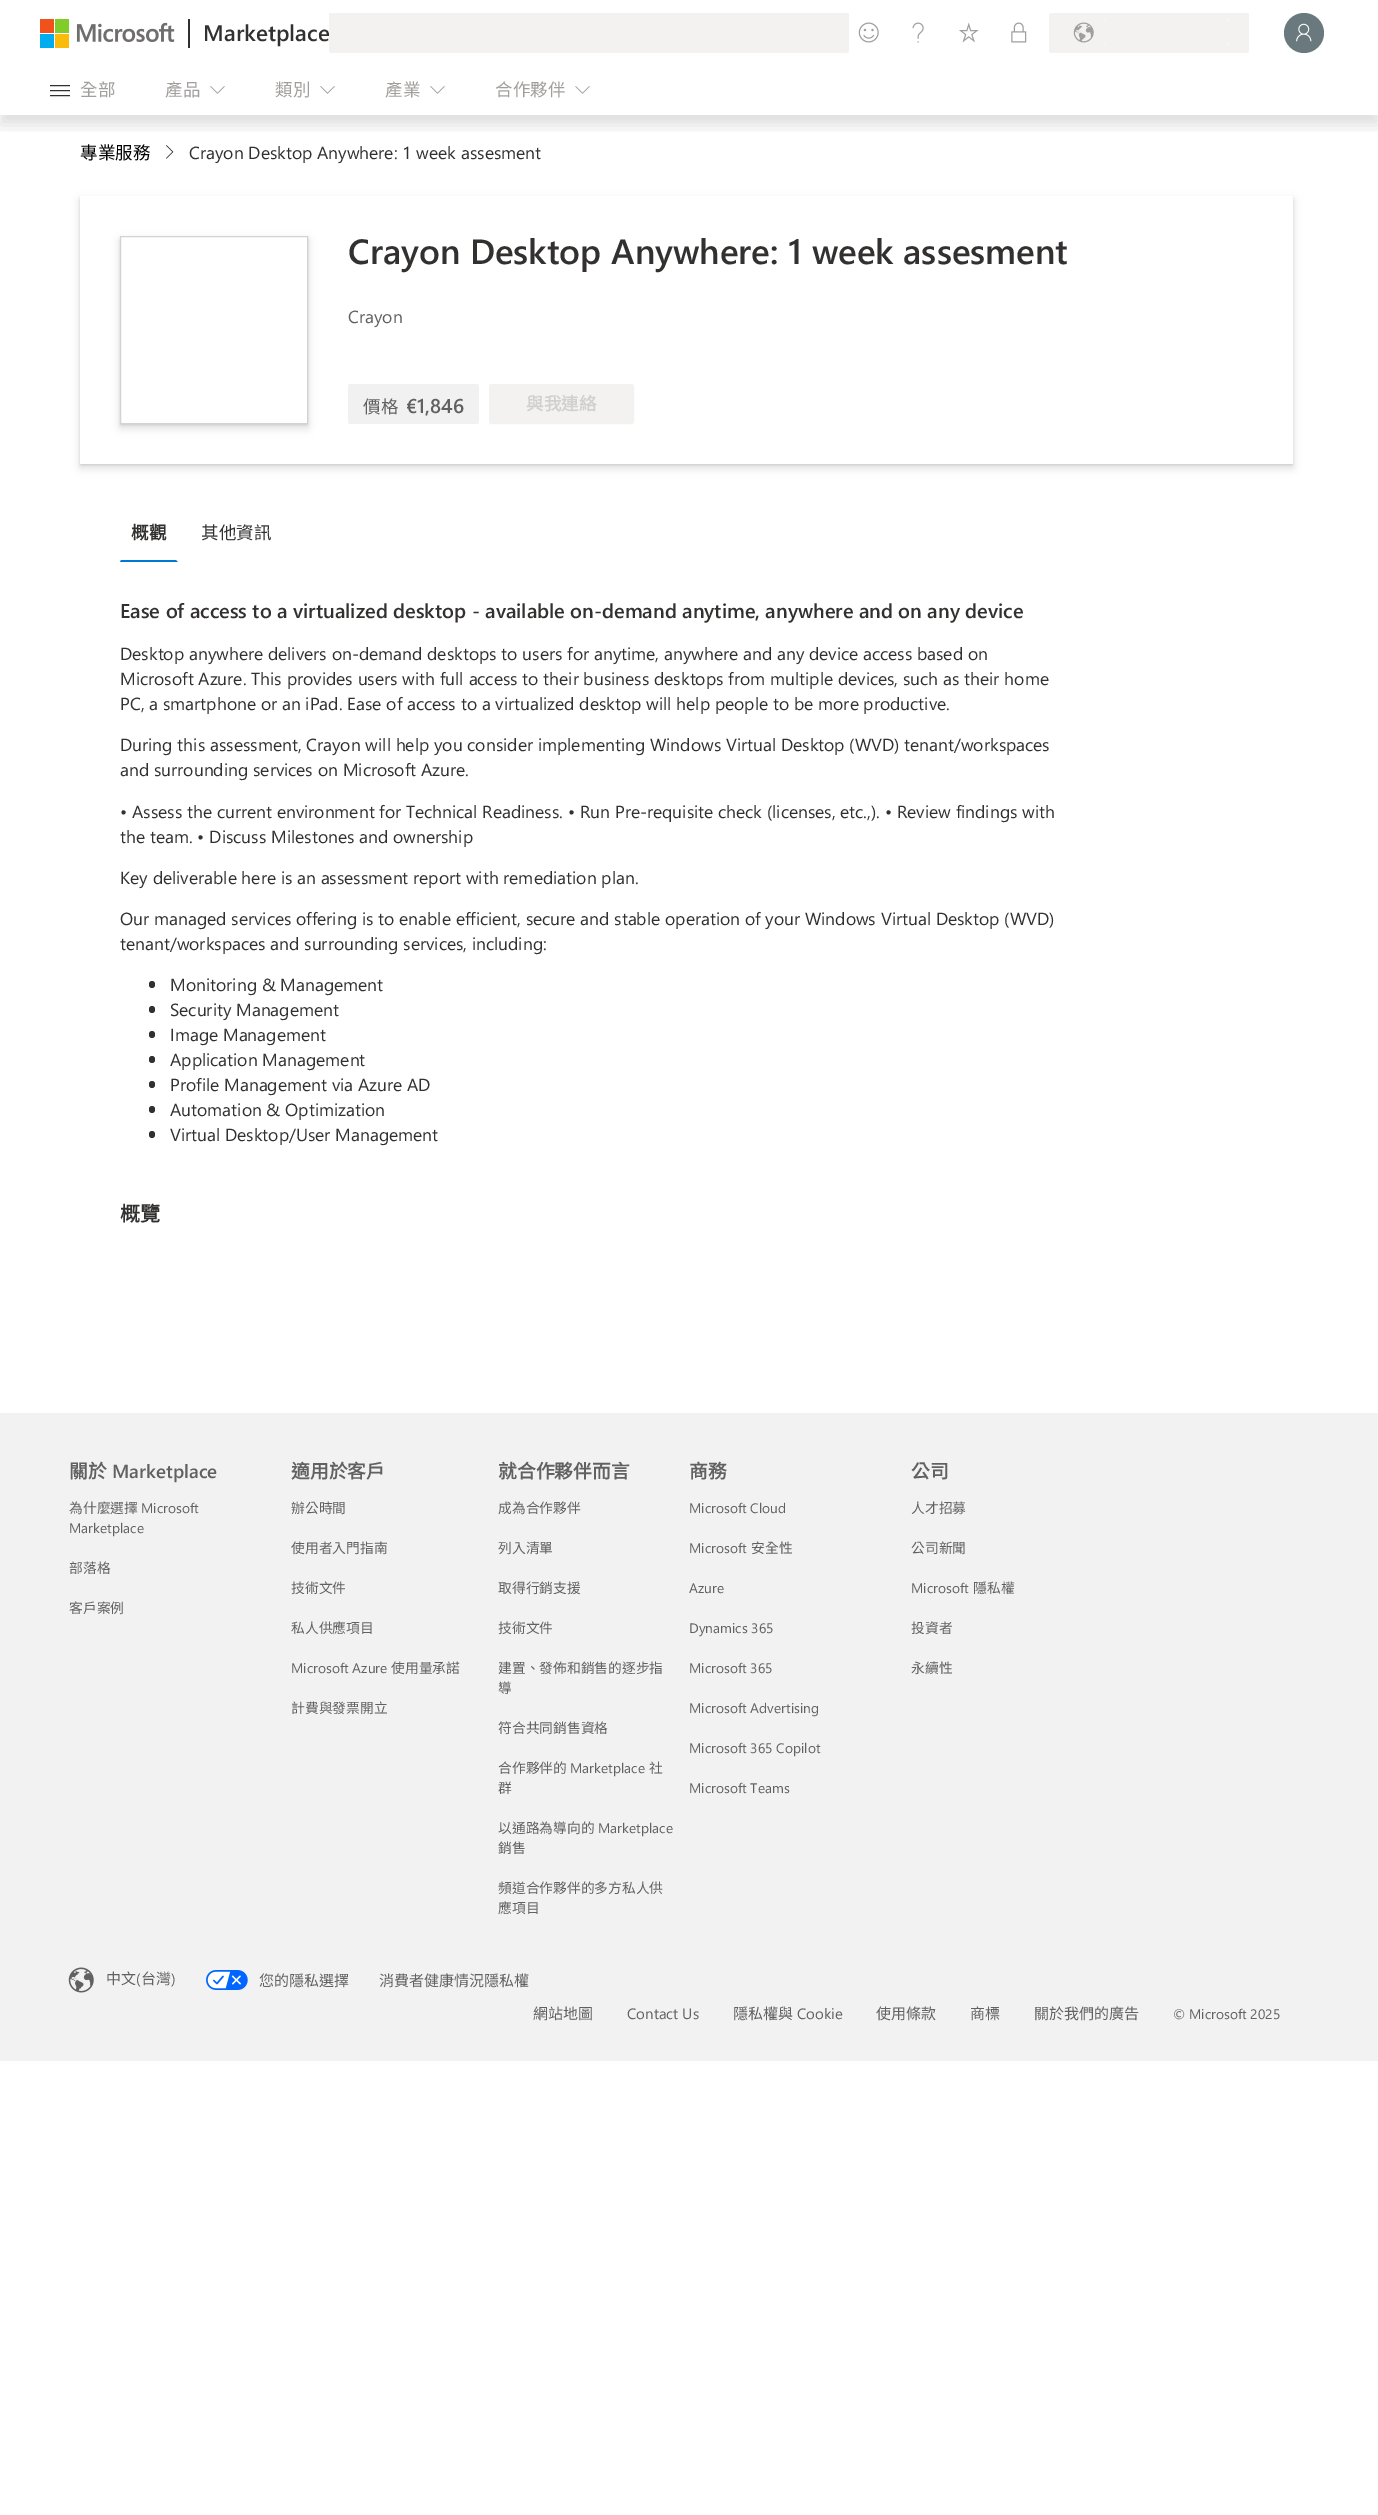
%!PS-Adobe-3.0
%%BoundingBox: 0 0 1378 2515
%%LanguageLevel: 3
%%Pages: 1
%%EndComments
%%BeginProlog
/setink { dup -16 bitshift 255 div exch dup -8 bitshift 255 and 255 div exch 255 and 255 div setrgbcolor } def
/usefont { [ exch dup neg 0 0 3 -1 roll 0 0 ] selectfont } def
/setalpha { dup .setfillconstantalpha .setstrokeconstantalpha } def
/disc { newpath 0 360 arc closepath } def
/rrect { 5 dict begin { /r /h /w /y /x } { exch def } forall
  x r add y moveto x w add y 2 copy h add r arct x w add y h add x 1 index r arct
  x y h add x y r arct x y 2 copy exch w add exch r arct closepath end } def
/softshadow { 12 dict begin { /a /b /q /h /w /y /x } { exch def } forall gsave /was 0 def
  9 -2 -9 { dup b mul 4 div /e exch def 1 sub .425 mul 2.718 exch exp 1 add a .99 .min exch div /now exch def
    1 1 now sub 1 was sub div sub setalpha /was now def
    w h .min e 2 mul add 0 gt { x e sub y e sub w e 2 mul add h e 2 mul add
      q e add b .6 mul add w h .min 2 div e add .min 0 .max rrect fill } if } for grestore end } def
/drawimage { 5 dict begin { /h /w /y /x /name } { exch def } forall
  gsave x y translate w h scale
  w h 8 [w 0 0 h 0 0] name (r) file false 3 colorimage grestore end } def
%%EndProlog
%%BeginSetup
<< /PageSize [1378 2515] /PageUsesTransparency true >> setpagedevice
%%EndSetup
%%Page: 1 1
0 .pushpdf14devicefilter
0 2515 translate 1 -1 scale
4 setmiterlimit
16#FFFFFF setink
0 0 1378 2515 rectfill
(img14.raw) 166 145 8 14 drawimage
gsave
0 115 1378 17 rectclip
16#000000 setink
0 10 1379 115 0 7.5 0.12 softshadow
grestore
(img1.raw) 40 19 135 29 drawimage
16#323130 setink
188 19 2 29 rectfill
/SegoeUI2-SemiBold 22.5 usefont
203 41 moveto (Marketplace) show
[
    [329 13 520 40 16#F3F2F1]
    [329 13 1 1 16#F7F6F5]
    [848 13 1 1 16#F9F9F9]
] { aload pop setink rectfill } forall
(img2.raw) 329 51 1 2 drawimage
(img3.raw) 847 51 2 2 drawimage
(img4.raw) 858 22 21 21 drawimage
(img5.raw) 912 22 12 21 drawimage
(img6.raw) 959 22 20 21 drawimage
(img7.raw) 1011 22 16 21 drawimage
16#F3F2F1 setink
1049 13 200 40 2.5 rrect fill
(img8.raw) 1073 22 21 21 drawimage
16#FCFCFC setink
1104 20 1 1 rectfill
(img9.raw) 1227 20 2 1 drawimage
1104 44 1 1 rectfill
(img10.raw) 1227 44 2 1 drawimage
16#69797E setink
1304 33 20 disc fill
(img11.raw) 1296 23 16 19 drawimage
(img12.raw) 50 85 20 12 drawimage
/NotoSansCJKTC-Regular 17.5 usefont
16#A19F9D setink
80 96 moveto (全部) show
165 96 moveto (產品) show
(img13.raw) 210 86 15 8 drawimage
275 96 moveto (類別) show
(img13.raw) 320 86 15 8 drawimage
385 96 moveto (產業) show
(img13.raw) 430 86 15 8 drawimage
495 96 moveto (合作夥伴) show
(img13.raw) 575 86 15 8 drawimage
16#000000 setink
80 159 moveto (專業服務) show
/SegoeUI2-Regular 17.5 usefont
16#323130 setink
189 159 moveto (Crayon Desktop Anywhere: 1 week assesment) show
16#000000 setink
80 198 1213 267 0 1 0.11 softshadow
80 200 1213 268 0 4.5 0.13 softshadow
16#FFFFFF setink
80 196 1213 268 rectfill
gsave
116 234 moveto 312 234 lineto 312 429 lineto 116 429 lineto closepath 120 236 moveto 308 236 lineto 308 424 lineto 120 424 lineto closepath eoclip newpath
16#000000 setink
120 238 188 187 0 1 0.11 softshadow
grestore
gsave
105 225 moveto 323 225 lineto 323 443 lineto 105 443 lineto closepath 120 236 moveto 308 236 lineto 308 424 lineto 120 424 lineto closepath eoclip newpath
16#000000 setink
120 240 188 188 0 4.5 0.13 softshadow
grestore
16#D3D3D3 setink
120.5 236.5 187 187 rectstroke
/SegoeUI2-SemiBold 35 usefont
16#323130 setink
348 264 moveto (Crayon Desktop Anywhere: 1 week assesment) show
/SegoeUI2-Regular 17.5 usefont
16#616161 setink
348 323 moveto (Crayon) show
16#F1F1F1 setink
348 384 131 40 2.5 rrect fill
/NotoSansCJKTC-Regular 17.5 usefont
16#616161 setink
363 413 moveto (價格) show
/SegoeUI2-SemiBold 20 usefont
406 413 moveto (€1,846) show
16#F3F2F1 setink
489.5 384.5 144 39 2 rrect gsave fill grestore
stroke
/NotoSansCJKTC-Bold 17.5 usefont
16#D2D0CE setink
526 410 moveto (與我連絡) show
16#0078D4 setink
178 562 moveto 120 562 lineto 121 560 lineto 176 560 lineto closepath fill
16#323130 setink
131 539 moveto (概觀) show
/NotoSansCJKTC-Regular 17.5 usefont
201 539 moveto (其他資訊) show
/SegoeUI2-SemiBold 20 usefont
120 618 moveto (Ease of access to a virtualized desktop - available on-demand anytime, anywhere and on any device) show
/SegoeUI2-Regular 17.5 usefont
[
    [(Desktop anywhere delivers on-demand desktops to users for anytime, anywhere and any device access based on) 120 660]
    [(Microsoft Azure. This provides users with full access to their business desktops from multiple devices, such as their home) 120 685]
    [(PC, a smartphone or an iPad. Ease of access to a virtualized desktop will help people to be more productive.) 120 710]
    [(During this assessment, Crayon will help you consider implementing Windows Virtual Desktop \(WVD\) tenant/workspaces) 120 751]
    [(and surrounding services on Microsoft Azure.) 120 776]
    [(• Assess the current environment for Technical Readiness. • Run Pre-requisite check \(licenses, etc.,\). • Review findings with) 120 818]
    [(the team. • Discuss Milestones and ownership) 120 843]
    [(Key deliverable here is an assessment report with remediation plan.) 120 884]
    [(Our managed services offering is to enable efficient, secure and stable operation of your Windows Virtual Desktop \(WVD\)) 120 925]
    [(tenant/workspaces and surrounding services, including:) 120 950]
] { aload pop moveto show } forall
149 981 6 7 3 rrect fill
170 991 moveto (Monitoring & Management) show
149 1006 6 7 3 rrect fill
170 1016 moveto (Security Management) show
149 1031 6 7 3 rrect fill
170 1041 moveto (Image Management) show
149 1056 6 7 3 rrect fill
170 1066 moveto (Application Management) show
149 1081 6 7 3 rrect fill
170 1091 moveto (Profile Management via Azure AD) show
149 1106 6 7 3 rrect fill
170 1116 moveto (Automation & Optimization) show
149 1131 6 7 3 rrect fill
170 1141 moveto (Virtual Desktop/User Management) show
/NotoSansCJKTC-Bold 20 usefont
120 1221 moveto (概覽) show
16#F2F2F2 setink
0 1413 1378 648 rectfill
/NotoSansCJKTC-Bold 18.75 usefont
16#616161 setink
69 1478 moveto (關於) show
/SegoeUI-SemiBold 18.75 usefont
112 1478 moveto (Marketplace) show
/NotoSansCJKTC-Regular 13.75 usefont
69 1513 moveto (為什麼選擇) show
/SegoeUI-Regular 13.75 usefont
141 1513 moveto (Microsoft) show
69 1533 moveto (Marketplace) show
/NotoSansCJKTC-Regular 13.75 usefont
69 1573 moveto (部落格) show
69 1613 moveto (客戶案例) show
/NotoSansCJKTC-Bold 18.75 usefont
291 1478 moveto (適用於客戶) show
/NotoSansCJKTC-Regular 13.75 usefont
[
    [(辦公時間) 291 1513]
    [(使用者入門指南) 291 1553]
    [(技術文件) 291 1593]
    [(私人供應項目) 291 1633]
] { aload pop moveto show } forall
/SegoeUI-Regular 13.75 usefont
291 1673 moveto (Microsoft Azure) show
/NotoSansCJKTC-Regular 13.75 usefont
391 1673 moveto (使用量承諾) show
291 1713 moveto (計費與發票開立) show
/NotoSansCJKTC-Bold 18.75 usefont
498 1478 moveto (就合作夥伴而言) show
/NotoSansCJKTC-Regular 13.75 usefont
[
    [(成為合作夥伴) 498 1513]
    [(列入清單) 498 1553]
    [(取得行銷支援) 498 1593]
    [(技術文件) 498 1633]
    [(建置、發佈和銷售的逐步指) 498 1673]
    [(導) 498 1693]
    [(符合共同銷售資格) 498 1733]
    [(合作夥伴的) 498 1773]
] { aload pop moveto show } forall
/SegoeUI-Regular 13.75 usefont
570 1773 moveto (Marketplace) show
/NotoSansCJKTC-Regular 13.75 usefont
[
    [(社) 649 1773]
    [(群) 498 1793]
    [(以通路為導向的) 498 1833]
] { aload pop moveto show } forall
/SegoeUI-Regular 13.75 usefont
598 1833 moveto (Marketplace) show
/NotoSansCJKTC-Regular 13.75 usefont
[
    [(銷售) 498 1853]
    [(頻道合作夥伴的多方私人供) 498 1893]
    [(應項目) 498 1913]
] { aload pop moveto show } forall
/NotoSansCJKTC-Bold 18.75 usefont
689 1478 moveto (商務) show
/SegoeUI-Regular 13.75 usefont
689 1513 moveto (Microsoft Cloud) show
689 1553 moveto (Microsoft) show
/NotoSansCJKTC-Regular 13.75 usefont
751 1553 moveto (安全性) show
/SegoeUI-Regular 13.75 usefont
[
    [(Azure) 689 1593]
    [(Dynamics 365) 689 1633]
    [(Microsoft 365) 689 1673]
    [(Microsoft Advertising) 689 1713]
    [(Microsoft 365 Copilot) 689 1753]
    [(Microsoft Teams) 689 1793]
] { aload pop moveto show } forall
/NotoSansCJKTC-Bold 18.75 usefont
911 1478 moveto (公司) show
/NotoSansCJKTC-Regular 13.75 usefont
911 1513 moveto (人才招募) show
911 1553 moveto (公司新聞) show
/SegoeUI-Regular 13.75 usefont
911 1593 moveto (Microsoft) show
/NotoSansCJKTC-Regular 13.75 usefont
[
    [(隱私權) 973 1593]
    [(投資者) 911 1633]
    [(永續性) 911 1673]
] { aload pop moveto show } forall
(img15.raw) 68 1967 26 26 drawimage
/NotoSansCJKTC-Regular 15 usefont
106 1984 moveto (中文) show
/SegoeUI-Regular 15 usefont
136 1984 moveto (\() show
/NotoSansCJKTC-Regular 15 usefont
141 1984 moveto (台灣) show
/SegoeUI-Regular 15 usefont
171 1984 moveto (\)) show
(img16.raw) 206 1970 42 20 drawimage
/NotoSansCJKTC-Regular 15 usefont
[
    [(您的隱私選擇) 259 1986]
    [(消費者健康情況隱私權) 379 1986]
    [(網站地圖) 533 2019]
] { aload pop moveto show } forall
/SegoeUI-Regular 15 usefont
627 2019 moveto (Contact Us) show
/NotoSansCJKTC-Regular 15 usefont
733 2019 moveto (隱私權與) show
/SegoeUI-Regular 15 usefont
797 2019 moveto (Cookie) show
/NotoSansCJKTC-Regular 15 usefont
[
    [(使用條款) 876 2019]
    [(商標) 970 2019]
    [(關於我們的廣告) 1034 2019]
] { aload pop moveto show } forall
/SegoeUI-Regular 13.75 usefont
1173 2019 moveto (© Microsoft 2025) show
.poppdf14devicefilter showpage
%%EOF
